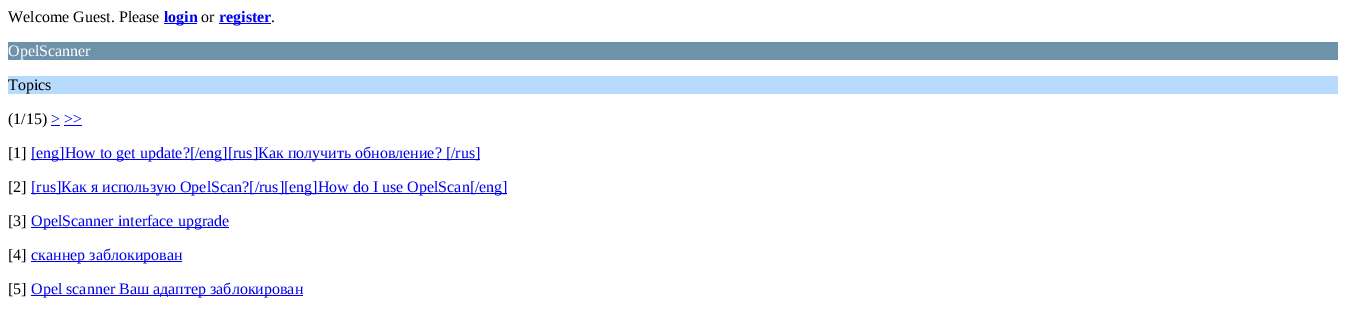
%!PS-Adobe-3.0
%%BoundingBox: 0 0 1346 312
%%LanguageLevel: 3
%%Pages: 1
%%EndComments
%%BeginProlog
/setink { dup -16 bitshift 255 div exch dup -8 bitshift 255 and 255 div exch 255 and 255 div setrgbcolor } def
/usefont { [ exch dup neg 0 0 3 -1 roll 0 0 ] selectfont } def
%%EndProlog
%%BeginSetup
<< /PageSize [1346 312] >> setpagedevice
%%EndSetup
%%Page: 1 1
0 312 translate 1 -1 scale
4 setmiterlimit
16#FFFFFF setink
0 0 1346 312 rectfill
/LiberationSerif-Regular 16 usefont
16#000000 setink
8 22 moveto (Welcome Guest. Please) show
16#0000EE setink
164 23 33 1 rectfill
/LiberationSerif-Bold 16 usefont
164 22 moveto (login) show
/LiberationSerif-Regular 16 usefont
16#000000 setink
201 22 moveto (or) show
16#0000EE setink
219 23 52 1 rectfill
/LiberationSerif-Bold 16 usefont
219 22 moveto (register) show
/LiberationSerif-Regular 16 usefont
16#000000 setink
271 22 moveto (.) show
16#6D92AA setink
8 42 1330 18 rectfill
16#FFFFFF setink
8 56 moveto (OpelScanner) show
16#B6DBFF setink
8 76 1330 18 rectfill
16#000000 setink
8 90 moveto (Topics) show
8 124 moveto (\(1/15\)) show
16#0000EE setink
51 124 moveto (> >>) show
51 125 9 1 rectfill
64 125 18 1 rectfill
16#000000 setink
8 158 moveto ([1]) show
16#0000EE setink
31 159 449 1 rectfill
31 158 moveto ([eng]How to get update?[/eng][rus]Как получить обновление? [/rus]) show
16#000000 setink
8 192 moveto ([2]) show
16#0000EE setink
31 193 476 1 rectfill
31 192 moveto ([rus]Как я использую OpelScan?[/rus][eng]How do I use OpelScan[/eng]) show
16#000000 setink
8 226 moveto ([3]) show
16#0000EE setink
31 227 198 1 rectfill
31 226 moveto (OpelScanner interface upgrade) show
16#000000 setink
8 260 moveto ([4]) show
16#0000EE setink
31 261 151 1 rectfill
31 260 moveto (сканнер заблокирован) show
16#000000 setink
8 294 moveto ([5]) show
16#0000EE setink
31 295 272 1 rectfill
31 294 moveto (Opel scanner Ваш адаптер заблокирован) show
showpage
%%EOF
